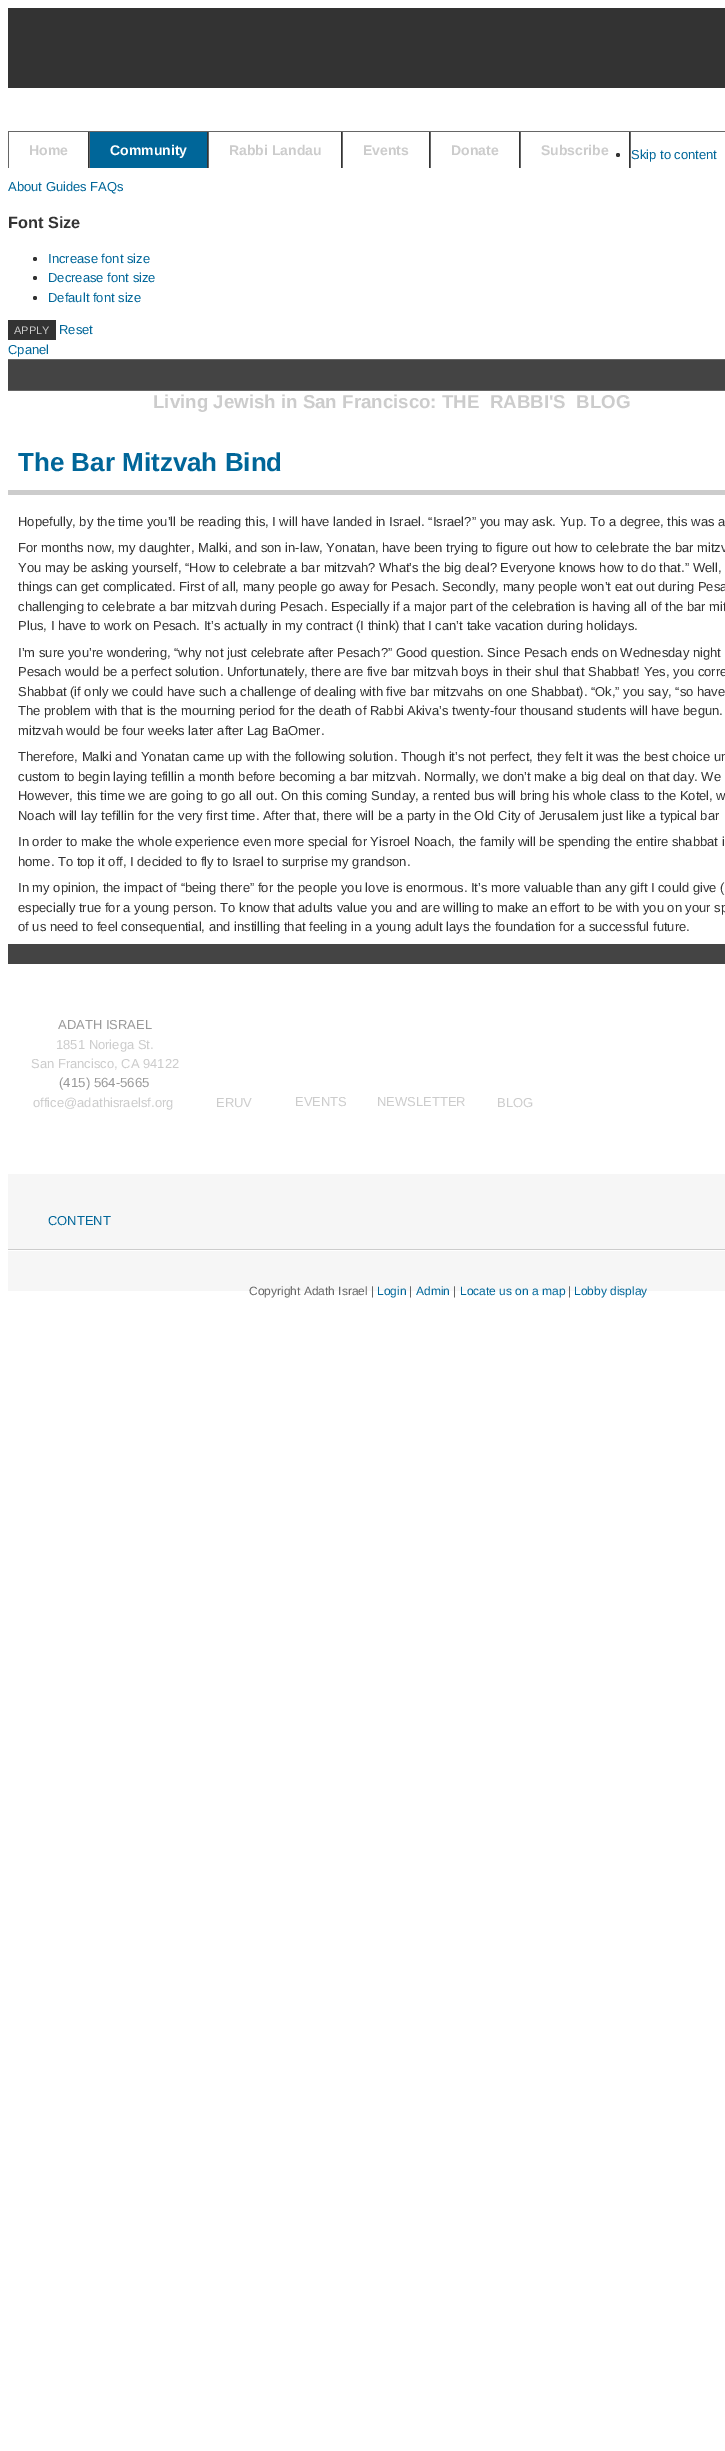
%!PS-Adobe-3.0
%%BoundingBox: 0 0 725 2451
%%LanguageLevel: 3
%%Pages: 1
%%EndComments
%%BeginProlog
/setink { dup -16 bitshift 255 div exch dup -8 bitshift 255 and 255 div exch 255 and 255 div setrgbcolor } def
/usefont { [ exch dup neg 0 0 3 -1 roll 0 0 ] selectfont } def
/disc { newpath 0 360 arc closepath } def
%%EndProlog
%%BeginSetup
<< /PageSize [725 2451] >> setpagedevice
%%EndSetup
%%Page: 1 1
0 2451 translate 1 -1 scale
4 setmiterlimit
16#FFFFFF setink
0 0 725 2451 rectfill
[
    [8 8 717 80 16#333333]
    [8 131 717 1 16#666666]
    [630 132 1 36 16#666666]
    [88 132 1 36 16#333333]
    [8 132 1 36 16#666666]
] { aload pop setink rectfill } forall
/LiberationSans-Bold 14 usefont
16#CCCCCC setink
29 155 moveto (Home) show
[
    [90 132 117 36 16#006699]
    [207 132 1 36 16#333333]
    [89 132 1 36 16#666666]
] { aload pop setink rectfill } forall
16#FFFFFF setink
110 155 moveto (Community) show
16#333333 setink
341 132 1 36 rectfill
16#666666 setink
208 132 1 36 rectfill
16#CCCCCC setink
229 155 moveto (Rabbi Landau) show
16#333333 setink
429 132 1 36 rectfill
16#666666 setink
342 132 1 36 rectfill
16#CCCCCC setink
363 155 moveto (Events) show
16#333333 setink
519 132 1 36 rectfill
16#666666 setink
430 132 1 36 rectfill
16#CCCCCC setink
451 155 moveto (Donate) show
16#333333 setink
629 132 1 36 rectfill
16#666666 setink
520 132 1 36 rectfill
16#CCCCCC setink
541 155 moveto (Subscribe) show
16#333333 setink
618 155 2 disc fill
/LiberationSans-Regular 13 usefont
16#006699 setink
631 159 moveto (Skip to content) show
8 191 moveto (About Guides FAQs) show
/LiberationSans-Bold 16.25 usefont
16#333333 setink
8 228 moveto (Font Size) show
35 259 2 disc fill
/LiberationSans-Regular 13 usefont
16#006699 setink
48 263 moveto (Increase font size) show
16#333333 setink
35 278 2 disc fill
16#006699 setink
48 282 moveto (Decrease font size) show
16#333333 setink
35 298 2 disc fill
16#006699 setink
48 302 moveto (Default font size) show
16#333333 setink
8 320 48 20 rectfill
/LiberationSans-Regular 11 usefont
16#CCCCCC setink
14 334 moveto (APPLY) show
/LiberationSans-Regular 13 usefont
16#006699 setink
59 334 moveto (Reset) show
8 354 moveto (Cpanel) show
[
    [8 360 717 30 16#444444]
    [8 359 717 1 16#666666]
    [8 390 717 1 16#666666]
] { aload pop setink rectfill } forall
/LiberationSans-Bold 18.7 usefont
16#CCCCCC setink
153 408 moveto (Living Jewish in San Francisco: THE  RABBI'S  BLOG) show
8 490 717 5 rectfill
/LiberationSans-Bold 26 usefont
16#006699 setink
18 471 moveto (The Bar Mitzvah Bind) show
/LiberationSans-Regular 13 usefont
16#333333 setink
[
    [(Hopefully, by the time you’ll be reading this, I will have landed in Israel. “Israel?” you may ask. Yup. To a degree, this was a) 18 526]
    [(For months now, my daughter, Malki, and son in-law, Yonatan, have been trying to figure out how to celebrate the bar mitzv) 18 552]
    [(You may be asking yourself, “How to celebrate a bar mitzvah? What’s the big deal? Everyone knows how to do that.” Well,) 18 572]
    [(things can get complicated. First of all, many people go away for Pesach. Secondly, many people won’t eat out during Pesa) 18 591]
    [(challenging to celebrate a bar mitzvah during Pesach. Especially if a major part of the celebration is having all of the bar mit) 18 611]
    [(Plus, I have to work on Pesach. It’s actually in my contract \(I think\) that I can’t take vacation during holidays.) 18 630]
    [(I’m sure you’re wondering, “why not just celebrate after Pesach?” Good question. Since Pesach ends on Wednesday night) 18 657]
    [(Pesach would be a perfect solution. Unfortunately, there are five bar mitzvah boys in their shul that Shabbat! Yes, you corre) 18 676]
    [(Shabbat \(if only we could have such a challenge of dealing with five bar mitzvahs on one Shabbat\). “Ok,” you say, “so have) 18 696]
    [(The problem with that is the mourning period for the death of Rabbi Akiva’s twenty-four thousand students will have begun.) 18 715]
    [(mitzvah would be four weeks later after Lag BaOmer.) 18 735]
    [(Therefore, Malki and Yonatan came up with the following solution. Though it’s not perfect, they felt it was the best choice un) 18 761]
    [(custom to begin laying tefillin a month before becoming a bar mitzvah. Normally, we don’t make a big deal on that day. We) 18 781]
    [(However, this time we are going to go all out. On this coming Sunday, a rented bus will bring his whole class to the Kotel, w) 18 800]
    [(Noach will lay tefillin for the very first time. After that, there will be a party in the Old City of Jerusalem just like a typical bar) 18 820]
    [(In order to make the whole experience even more special for Yisroel Noach, the family will be spending the entire shabbat i) 18 846]
    [(home. To top it off, I decided to fly to Israel to surprise my grandson.) 18 866]
    [(In my opinion, the impact of “being there” for the people you love is enormous. It’s more valuable than any gift I could give \() 18 892]
    [(especially true for a young person. To know that adults value you and are willing to make an effort to be with you on your sp) 18 912]
    [(of us need to feel consequential, and instilling that feeling in a young adult lays the foundation for a successful future.) 18 931]
] { aload pop moveto show } forall
16#444444 setink
8 944 717 20 rectfill
16#999999 setink
58 1029 moveto (ADATH ISRAEL) show
16#CCCCCC setink
56 1049 moveto (1851 Noriega St.) show
31 1068 moveto (San Francisco, CA 94122) show
/LiberationSans-Regular 13.25 usefont
16#999999 setink
59 1087 moveto (\(415\) 564-5665) show
/LiberationSans-Regular 13 usefont
16#CCCCCC setink
[
    [(office@adathisraelsf.org) 33 1107]
    [(ERUV) 216 1107]
    [(EVENTS) 295 1106]
    [(NEWSLETTER) 377 1106]
    [(BLOG) 497 1107]
] { aload pop moveto show } forall
16#F6F6F6 setink
8 1174 717 75 rectfill
16#CCCCCC setink
8 1249 717 1 rectfill
16#006699 setink
48 1225 moveto (CONTENT) show
16#F6F6F6 setink
8 1251 717 40 rectfill
/LiberationSans-Regular 12 usefont
16#666666 setink
249 1295 moveto (Copyright Adath Israel |) show
16#006699 setink
377 1295 moveto (Login) show
16#666666 setink
409 1295 moveto (|) show
16#006699 setink
416 1295 moveto (Admin) show
16#666666 setink
453 1295 moveto (|) show
16#006699 setink
460 1295 moveto (Locate us on a map) show
16#666666 setink
568 1295 moveto (|) show
16#006699 setink
574 1295 moveto (Lobby display) show
showpage
%%EOF
